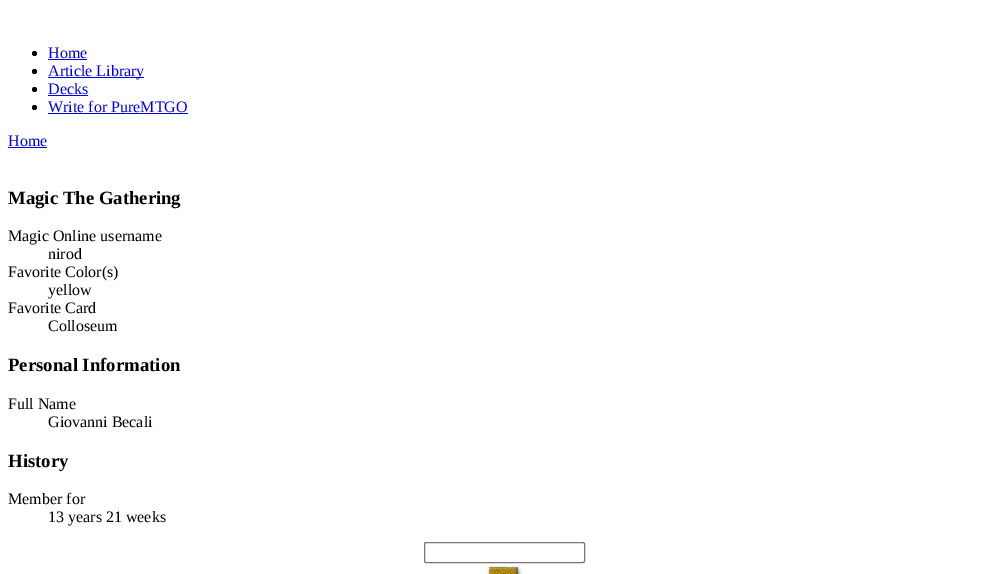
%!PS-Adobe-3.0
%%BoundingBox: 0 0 1008 574
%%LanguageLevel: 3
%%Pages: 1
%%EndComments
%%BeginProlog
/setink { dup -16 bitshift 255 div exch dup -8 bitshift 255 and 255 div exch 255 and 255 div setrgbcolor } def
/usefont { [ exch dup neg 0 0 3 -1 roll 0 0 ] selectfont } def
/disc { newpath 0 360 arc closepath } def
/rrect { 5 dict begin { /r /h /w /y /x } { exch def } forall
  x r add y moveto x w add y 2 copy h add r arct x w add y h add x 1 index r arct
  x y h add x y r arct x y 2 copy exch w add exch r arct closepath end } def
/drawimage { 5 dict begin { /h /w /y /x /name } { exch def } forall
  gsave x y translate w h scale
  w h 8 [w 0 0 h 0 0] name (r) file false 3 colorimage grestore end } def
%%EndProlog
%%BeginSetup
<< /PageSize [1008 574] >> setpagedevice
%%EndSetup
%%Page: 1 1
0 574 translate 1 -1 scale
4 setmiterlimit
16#FFFFFF setink
0 0 1008 574 rectfill
16#000000 setink
34.5 53.5 2.5 disc fill
/LiberationSerif-Regular 16 usefont
16#0000EE setink
48 58 moveto (Home) show
48 59 39 1 rectfill
16#000000 setink
34.5 71.5 2.5 disc fill
16#0000EE setink
48 77 96 1 rectfill
48 76 moveto (Article Library) show
16#000000 setink
34.5 89.5 2.5 disc fill
16#0000EE setink
48 94 moveto (Decks) show
48 95 40 1 rectfill
16#000000 setink
34.5 107.5 2.5 disc fill
16#0000EE setink
48 112 moveto (Write for PureMTGO) show
48 113 140 1 rectfill
8 146 moveto (Home) show
8 147 39 1 rectfill
/LiberationSerif-Bold 18.75 usefont
16#000000 setink
8 204 moveto (Magic The Gathering) show
/LiberationSerif-Regular 16 usefont
[
    [(Magic Online username) 8 241]
    [(nirod) 48 259]
    [(Favorite Color\(s\)) 8 277]
    [(yellow) 48 295]
    [(Favorite Card) 8 313]
    [(Colloseum) 48 331]
] { aload pop moveto show } forall
/LiberationSerif-Bold 18.75 usefont
8 371 moveto (Personal Information) show
/LiberationSerif-Regular 16 usefont
8 409 moveto (Full Name) show
48 427 moveto (Giovanni Becali) show
/LiberationSerif-Bold 18.75 usefont
8 467 moveto (History) show
/LiberationSerif-Regular 16 usefont
8 504 moveto (Member for) show
48 522 moveto (13 years 21 weeks) show
16#767676 setink
424.5 542.5 160 20 1.5 rrect stroke
(img1.raw) 486 565 37 9 drawimage
showpage
%%EOF
